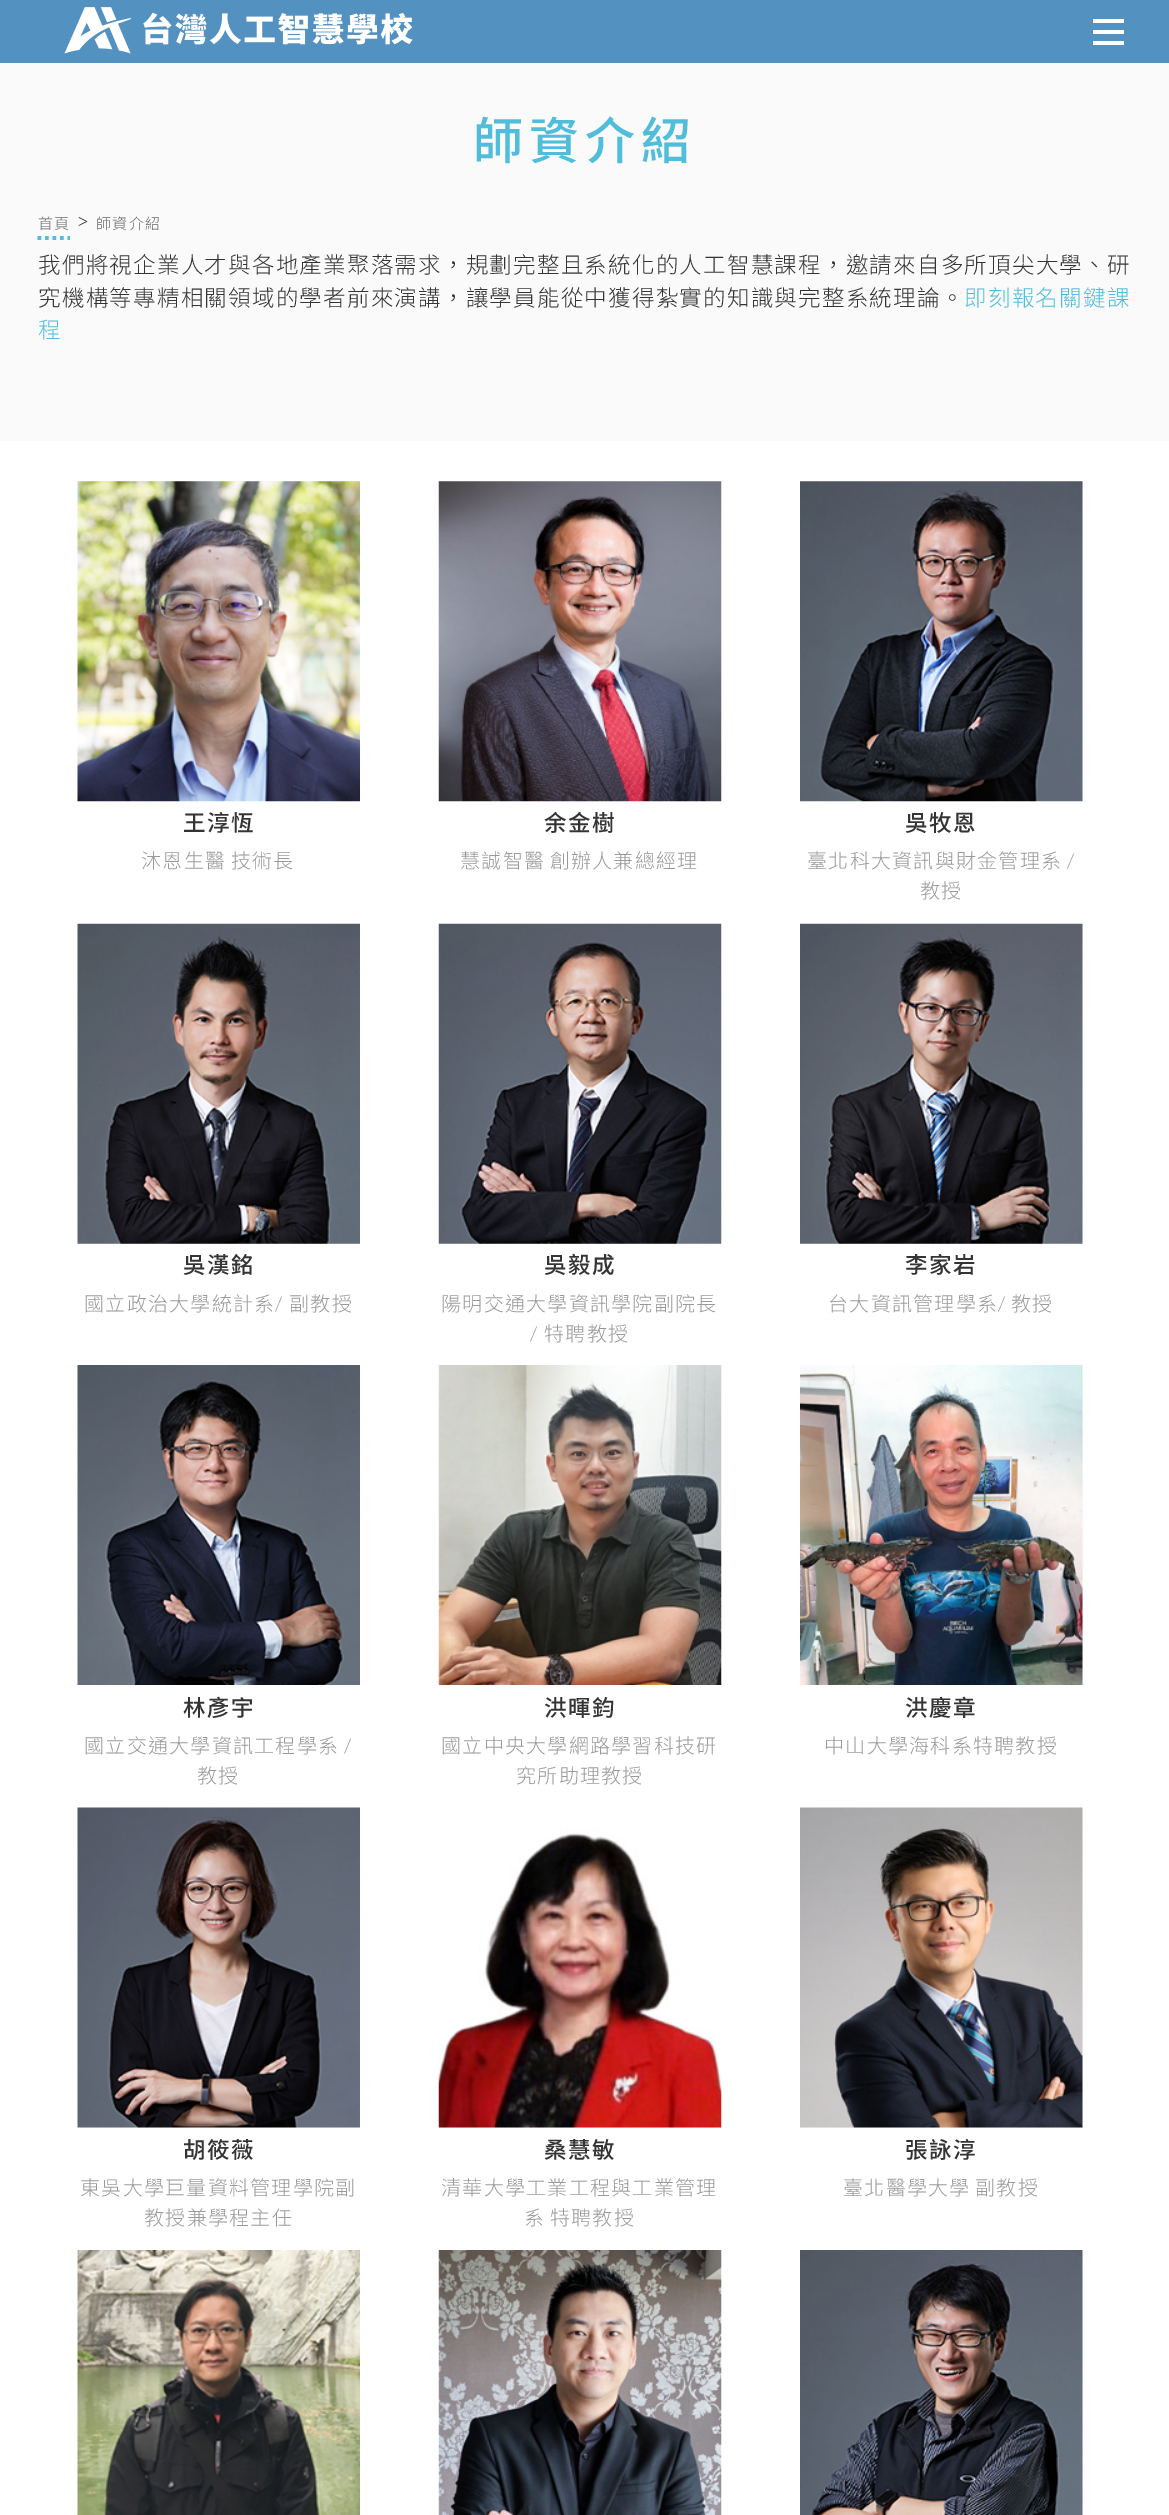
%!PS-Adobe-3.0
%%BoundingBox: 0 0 1169 2515
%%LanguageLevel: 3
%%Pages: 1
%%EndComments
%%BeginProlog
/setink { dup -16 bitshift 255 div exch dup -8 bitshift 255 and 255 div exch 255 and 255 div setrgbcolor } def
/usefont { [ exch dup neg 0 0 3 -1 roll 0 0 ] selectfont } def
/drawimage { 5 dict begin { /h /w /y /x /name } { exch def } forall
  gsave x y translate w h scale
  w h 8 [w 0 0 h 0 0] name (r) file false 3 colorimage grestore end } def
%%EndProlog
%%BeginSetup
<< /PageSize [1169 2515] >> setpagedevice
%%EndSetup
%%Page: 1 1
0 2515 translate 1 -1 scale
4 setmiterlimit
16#FFFFFF setink
0 0 1169 2515 rectfill
16#5391C0 setink
0 0 1169 63 rectfill
(img1.raw) 64 7 349 47 drawimage
[
    [1093 30 31 4 16#FFFFFF]
    [1093 19 31 4 16#FFFFFF]
    [1093 41 31 4 16#FFFFFF]
    [0 63 1169 378 16#FAFAFA]
] { aload pop setink rectfill } forall
/NotoSansTC-Medium 50 usefont
16#50BDDB setink
473 159 moveto 6 0 (師資介紹) ashow
/NotoSansTC-Light 15 usefont
16#666666 setink
38 229 moveto 1.25 0 (首頁) ashow
16#50BDDB setink
3.8 setlinewidth
[3.75 3.75] 0 setdash
37.5 238 moveto 70 238 lineto stroke
/Lato-Light 22.5 usefont
16#343434 setink
76 229 moveto 1.25 0 (>) ashow
/NotoSansTC-Light 15 usefont
16#666666 setink
96 229 moveto 1.25 0 (師資介紹) ashow
/NotoSansTC-Light 22.5 usefont
16#343434 setink
38 273 moveto 1.25 0 (我們將視企業人才與各地產業聚落需求，規劃完整且系統化的人工智慧課程，邀請來自多所頂尖大學、研) ashow
38 306 moveto 1.25 0 (究機構等專精相關領域的學者前來演講，讓學員能從中獲得紮實的知識與完整系統理論。) ashow
16#50BDDB setink
964 306 moveto 1.25 0 (即刻報名關鍵課) ashow
38 338 moveto 1.25 0 (程) ashow
(img2.raw) 77 481 283 321 drawimage
/NotoSansTC-Medium 22.5 usefont
16#343434 setink
183 831 moveto 1.25 0 (王淳恆) ashow
/NotoSansTC-Light 20 usefont
16#999999 setink
141 868 moveto -1 0 32 1.25 0 (沐恩生醫 技術長) awidthshow
(img3.raw) 438 481 284 321 drawimage
/NotoSansTC-Medium 22.5 usefont
16#343434 setink
544 831 moveto 1.25 0 (余金樹) ashow
/NotoSansTC-Light 20 usefont
16#999999 setink
460 868 moveto -1 0 32 1.25 0 (慧誠智醫 創辦人兼總經理) awidthshow
16#F9F9F9 setink
800 481 283 320 rectfill
(img4.raw) 800 481 283 321 drawimage
/NotoSansTC-Medium 22.5 usefont
16#343434 setink
905 831 moveto 1.25 0 (吳牧恩) ashow
/NotoSansTC-Light 20 usefont
16#999999 setink
807 868 moveto 1.25 0 (臺北科大資訊與財金管理系) ashow
/Lato-Light 20 usefont
1067 868 moveto 1.25 0 (/) ashow
/NotoSansTC-Light 20 usefont
920 898 moveto 1.25 0 (教授) ashow
(img5.raw) 77 923 283 321 drawimage
/NotoSansTC-Medium 22.5 usefont
16#343434 setink
183 1273 moveto 1.25 0 (吳漢銘) ashow
/NotoSansTC-Light 20 usefont
16#999999 setink
84 1311 moveto 1.25 0 (國立政治大學統計系) ashow
/Lato-Light 20 usefont
275 1311 moveto 1.25 0 (/) ashow
/NotoSansTC-Light 20 usefont
289 1311 moveto 1.25 0 (副教授) ashow
(img6.raw) 438 923 284 321 drawimage
/NotoSansTC-Medium 22.5 usefont
16#343434 setink
544 1273 moveto 1.25 0 (吳毅成) ashow
/NotoSansTC-Light 20 usefont
16#999999 setink
441 1311 moveto 1.25 0 (陽明交通大學資訊學院副院長) ashow
/Lato-Light 20 usefont
530 1341 moveto 1.25 0 (/) ashow
/NotoSansTC-Light 20 usefont
544 1341 moveto 1.25 0 (特聘教授) ashow
16#F9F9F9 setink
800 924 283 320 rectfill
(img7.raw) 800 923 283 321 drawimage
/NotoSansTC-Medium 22.5 usefont
16#343434 setink
905 1273 moveto 1.25 0 (李家岩) ashow
/NotoSansTC-Light 20 usefont
16#999999 setink
828 1311 moveto 1.25 0 (台大資訊管理學系) ashow
/Lato-Light 20 usefont
998 1311 moveto 1.25 0 (/) ashow
/NotoSansTC-Light 20 usefont
1011 1311 moveto 1.25 0 (教授) ashow
(img8.raw) 77 1365 283 320 drawimage
/NotoSansTC-Medium 22.5 usefont
16#343434 setink
183 1716 moveto 1.25 0 (林彥宇) ashow
/NotoSansTC-Light 20 usefont
16#999999 setink
84 1753 moveto 1.25 0 (國立交通大學資訊工程學系) ashow
/Lato-Light 20 usefont
344 1753 moveto 1.25 0 (/) ashow
/NotoSansTC-Light 20 usefont
197 1783 moveto 1.25 0 (教授) ashow
(img9.raw) 438 1365 284 320 drawimage
/NotoSansTC-Medium 22.5 usefont
16#343434 setink
544 1716 moveto 1.25 0 (洪暉鈞) ashow
/NotoSansTC-Light 20 usefont
16#999999 setink
441 1753 moveto 1.25 0 (國立中央大學網路學習科技研) ashow
516 1783 moveto 1.25 0 (究所助理教授) ashow
16#F9F9F9 setink
1082 1365 1 320 rectfill
(img10.raw) 800 1365 283 320 drawimage
/NotoSansTC-Medium 22.5 usefont
16#343434 setink
905 1716 moveto 1.25 0 (洪慶章) ashow
/NotoSansTC-Light 20 usefont
16#999999 setink
824 1753 moveto 1.25 0 (中山大學海科系特聘教授) ashow
16#F9F9F9 setink
78 2127 282 1 rectfill
(img11.raw) 77 1807 283 321 drawimage
/NotoSansTC-Medium 22.5 usefont
16#343434 setink
183 2158 moveto 1.25 0 (胡筱薇) ashow
/NotoSansTC-Light 20 usefont
16#999999 setink
80 2195 moveto 1.25 0 (東吳大學巨量資料管理學院副) ashow
144 2225 moveto 1.25 0 (教授兼學程主任) ashow
16#F9F9F9 setink
439 2127 282 1 rectfill
(img12.raw) 438 1808 284 320 drawimage
/NotoSansTC-Medium 22.5 usefont
16#343434 setink
544 2158 moveto 1.25 0 (桑慧敏) ashow
/NotoSansTC-Light 20 usefont
16#999999 setink
441 2195 moveto 1.25 0 (清華大學工業工程與工業管理) ashow
524 2225 moveto -1 0 32 1.25 0 (系 特聘教授) awidthshow
16#F9F9F9 setink
800 1808 283 320 rectfill
(img13.raw) 800 1807 283 321 drawimage
/NotoSansTC-Medium 22.5 usefont
16#343434 setink
905 2158 moveto 1.25 0 (張詠淳) ashow
/NotoSansTC-Light 20 usefont
16#999999 setink
843 2195 moveto -1 0 32 1.25 0 (臺北醫學大學 副教授) awidthshow
(img14.raw) 77 2250 283 265 drawimage
(img15.raw) 438 2250 284 265 drawimage
16#F9F9F9 setink
1082 2250 1 265 rectfill
(img16.raw) 800 2250 283 265 drawimage
showpage
%%EOF
